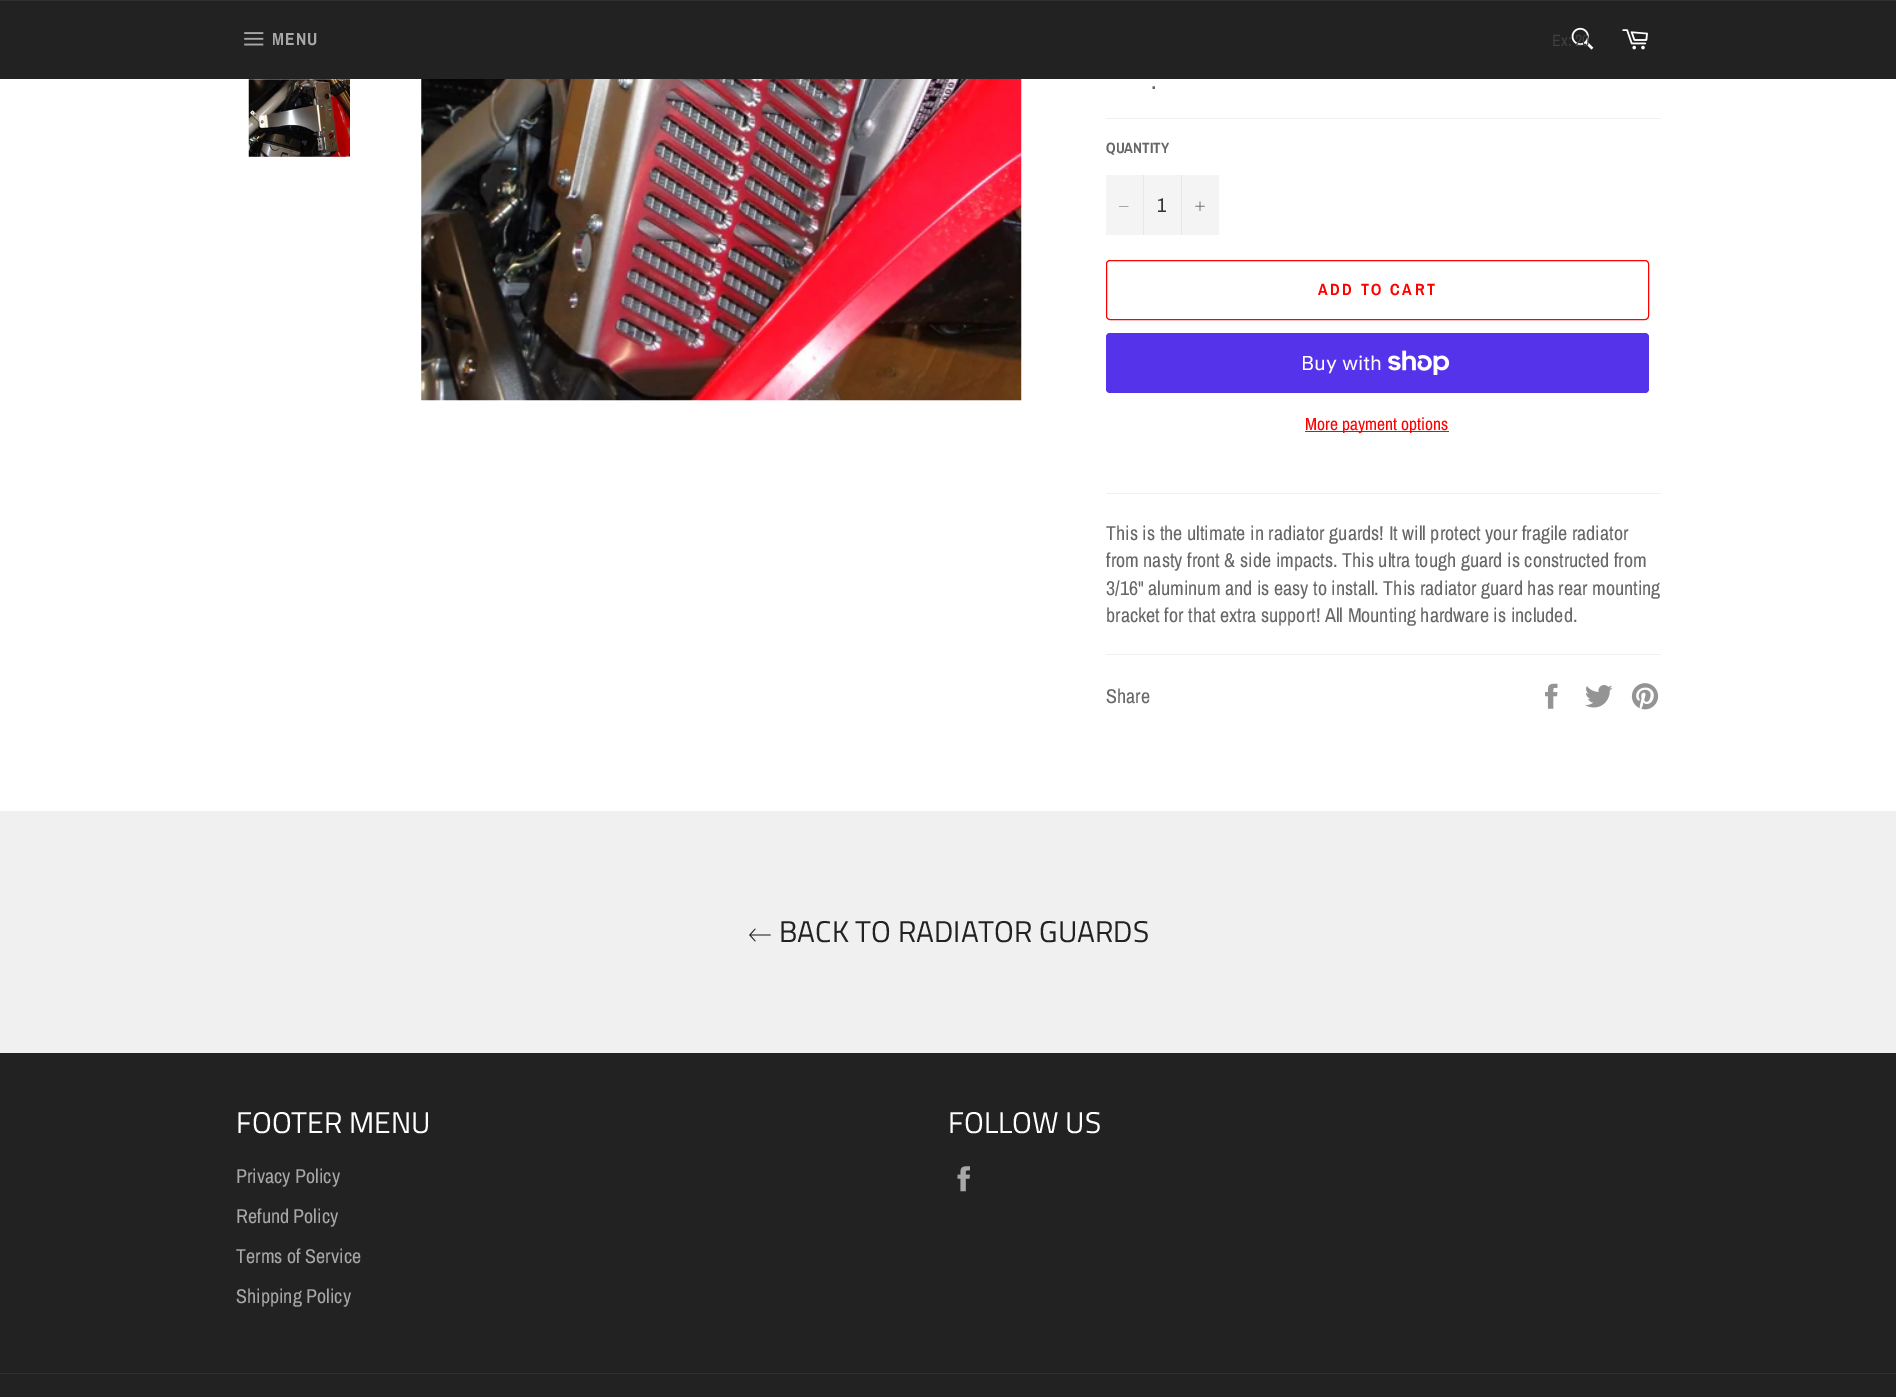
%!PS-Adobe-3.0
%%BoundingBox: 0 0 1896 1397
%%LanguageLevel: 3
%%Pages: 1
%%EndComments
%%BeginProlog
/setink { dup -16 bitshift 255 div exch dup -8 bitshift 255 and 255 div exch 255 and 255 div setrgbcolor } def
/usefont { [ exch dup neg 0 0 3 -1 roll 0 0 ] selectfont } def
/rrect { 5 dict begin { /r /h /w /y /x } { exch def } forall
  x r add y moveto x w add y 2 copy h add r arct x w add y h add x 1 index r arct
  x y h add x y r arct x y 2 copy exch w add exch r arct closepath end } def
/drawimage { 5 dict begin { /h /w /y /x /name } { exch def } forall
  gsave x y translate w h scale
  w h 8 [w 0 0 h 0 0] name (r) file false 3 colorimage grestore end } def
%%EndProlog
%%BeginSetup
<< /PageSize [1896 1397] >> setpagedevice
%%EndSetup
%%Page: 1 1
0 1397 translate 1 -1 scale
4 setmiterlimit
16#FFFFFF setink
0 0 1896 1397 rectfill
16#222222 setink
0 1 1896 78 rectfill
16#2F2F2F setink
0 0 1896 1 rectfill
(img1.raw) 244 32 20 14 drawimage
/ArchivoNarrow-Bold 17.5 usefont
16#A7A7A7 setink
272 45 moveto 1 0 (MENU) ashow
(img2.raw) 1571 27 23 23 drawimage
/ArchivoNarrow-Regular 16.25 usefont
16#404040 setink
1552 46 moveto (Ex: 20) show
(img3.raw) 1622 29 26 21 drawimage
(img4.raw) 248 79 102 78 drawimage
(img5.raw) 421 79 601 322 drawimage
/ArchivoNarrow-Regular 25 usefont
16#666666 setink
1151 89 moveto (.) show
16#F0F0F0 setink
1106 118 555 1 rectfill
/ArchivoNarrow-Bold 15 usefont
16#666666 setink
1106 153 moveto (QUANTITY) show
16#F4F4F4 setink
1106 175 113 60 rectfill
16#E7E7E7 setink
1143 175 1 60 rectfill
16#666666 setink
1128.5 206 moveto 1128.5 206.5 lineto 1119 206.5 lineto 1119 206 lineto closepath eofill
/ArchivoNarrow-Regular 20 usefont
16#333333 setink
1157 212 moveto (1) show
16#E7E7E7 setink
1181 175 1 60 rectfill
(img6.raw) 1195 201 10 10 drawimage
16#FF0000 setink
1106.5 260.5 542 59 3.5 rrect stroke
/ArchivoNarrow-Bold 16.25 usefont
1318 295 moveto 2.5 0 (ADD TO CART) ashow
16#5433EB setink
1106 333 543 60 4 rrect fill
/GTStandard-Regular 20 usefont
16#FFFFFF setink
1301 370 moveto (Buy with) show
(img7.raw) 1388 350 62 25 drawimage
16#FF0000 setink
1305 431 144 1 rectfill
/ArchivoNarrow-Regular 17.5 usefont
1305 430 moveto (More payment options) show
16#F0F0F0 setink
1106 493 555 1 rectfill
/ArchivoNarrow-Regular 20 usefont
16#666666 setink
[
    [(This is the ultimate in radiator guards! It will protect your fragile radiator) 1106 540]
    [(from nasty front & side impacts. This ultra tough guard is constructed from) 1106 567]
    [(3/16" aluminum and is easy to install. This radiator guard has rear mounting) 1106 595]
    [(bracket for that extra support! All Mounting hardware is included.) 1106 622]
] { aload pop moveto show } forall
16#F0F0F0 setink
1106 654 555 1 rectfill
16#666666 setink
1106 703 moveto (Share) show
(img8.raw) 1545 683 13 26 drawimage
(img9.raw) 1585 685 28 23 drawimage
(img10.raw) 1631 683 28 27 drawimage
16#F0F0F0 setink
0 811 1896 242 rectfill
(img11.raw) 749 928 22 14 drawimage
/TitilliumWeb-Regular 30 usefont
16#222222 setink
779 942 moveto (BACK TO RADIATOR GUARDS) show
0 1053 1896 344 rectfill
16#FFFFFF setink
236 1133 moveto (FOOTER MENU) show
/ArchivoNarrow-Regular 20 usefont
16#A7A7A7 setink
[
    [(Privacy Policy) 236 1183]
    [(Refund Policy) 236 1223]
    [(Terms of Service) 236 1263]
    [(Shipping Policy) 236 1303]
] { aload pop moveto show } forall
/TitilliumWeb-Regular 30 usefont
16#FFFFFF setink
948 1133 moveto (FOLLOW US) show
(img12.raw) 957 1166 13 26 drawimage
16#2F2F2F setink
0 1373 1896 1 rectfill
showpage
%%EOF
